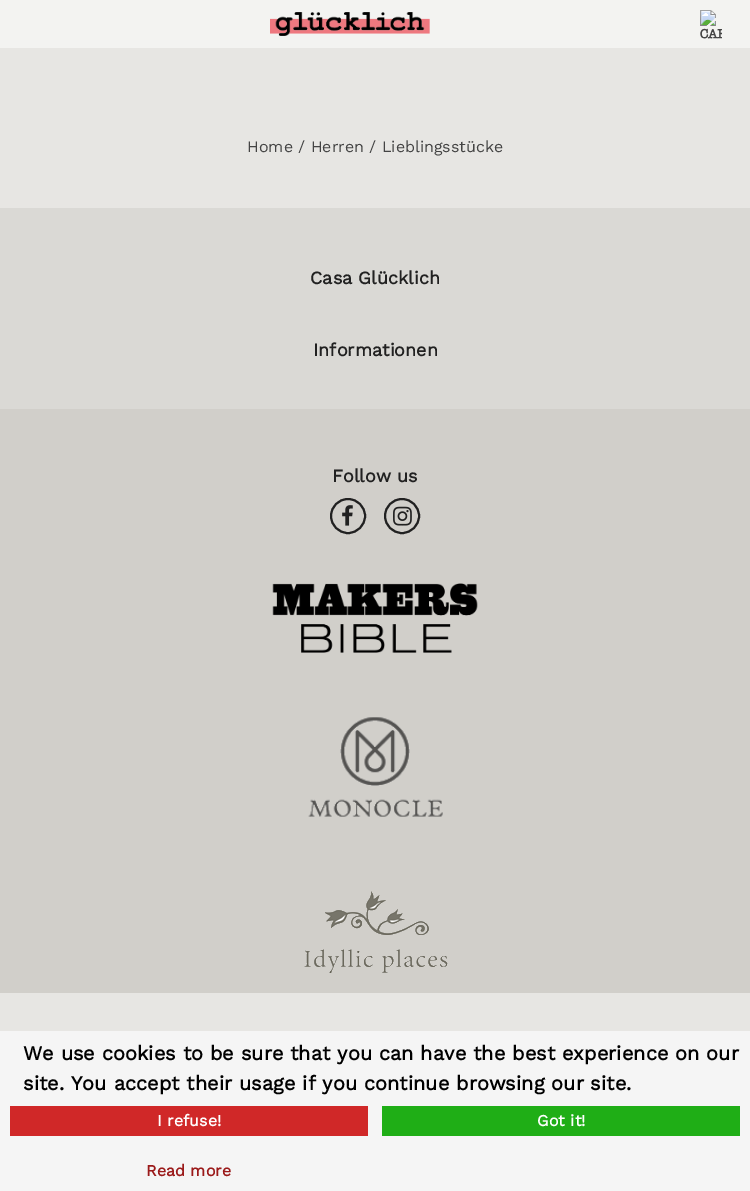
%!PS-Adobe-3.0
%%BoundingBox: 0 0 750 1191
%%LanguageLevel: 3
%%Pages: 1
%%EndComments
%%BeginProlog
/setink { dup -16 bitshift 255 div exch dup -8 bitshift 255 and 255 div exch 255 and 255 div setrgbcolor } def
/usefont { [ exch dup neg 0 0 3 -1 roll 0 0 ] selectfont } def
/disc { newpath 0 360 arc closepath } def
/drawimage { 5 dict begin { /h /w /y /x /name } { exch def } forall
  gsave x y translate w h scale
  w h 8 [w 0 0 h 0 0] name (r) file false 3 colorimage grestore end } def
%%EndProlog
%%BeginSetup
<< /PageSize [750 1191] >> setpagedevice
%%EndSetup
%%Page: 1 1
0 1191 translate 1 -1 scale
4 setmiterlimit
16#E7E6E3 setink
0 0 750 1191 rectfill
16#F3F3F1 setink
0 0 750 48 rectfill
(img1.raw) 270 12 160 24 drawimage
(img2.raw) 700 10 22 29 drawimage
/WorkSans-Regular 16 usefont
16#444444 setink
247 152 moveto (Home / Herren / Lieblingsstücke) show
16#DAD9D5 setink
0 208 750 201 rectfill
/WorkSans-Bold 18 usefont
16#212121 setink
310 284 moveto (Casa Glücklich) show
313 356 moveto (Informationen) show
16#D1CFCA setink
0 409 750 584 rectfill
16#212121 setink
332 482 moveto (Follow us) show
2 setlinewidth
348 516 17 disc stroke
(img3.raw) 342 505 11 21 drawimage
402 516 17 disc stroke
(img4.raw) 393 506 19 20 drawimage
(img5.raw) 272 583 206 70 drawimage
(img6.raw) 308 717 135 100 drawimage
(img7.raw) 304 891 144 82 drawimage
16#F5F5F5 setink
0 1031 750 160 rectfill
/WorkSans-Bold 20 usefont
16#000000 setink
23 1060 moveto (We use cookies to be sure that you can have the best experience on our) show
23 1090 moveto (site. You accept their usage if you continue browsing our site.) show
16#D02828 setink
10 1106 358 30 rectfill
/WorkSans-Bold 16 usefont
16#FFFFFF setink
157 1126 moveto (I refuse!) show
16#1FAE16 setink
382 1106 358 30 rectfill
16#FFFFFF setink
537 1126 moveto (Got it!) show
16#9B1A1A setink
146 1176 moveto (Read more) show
showpage
%%EOF
